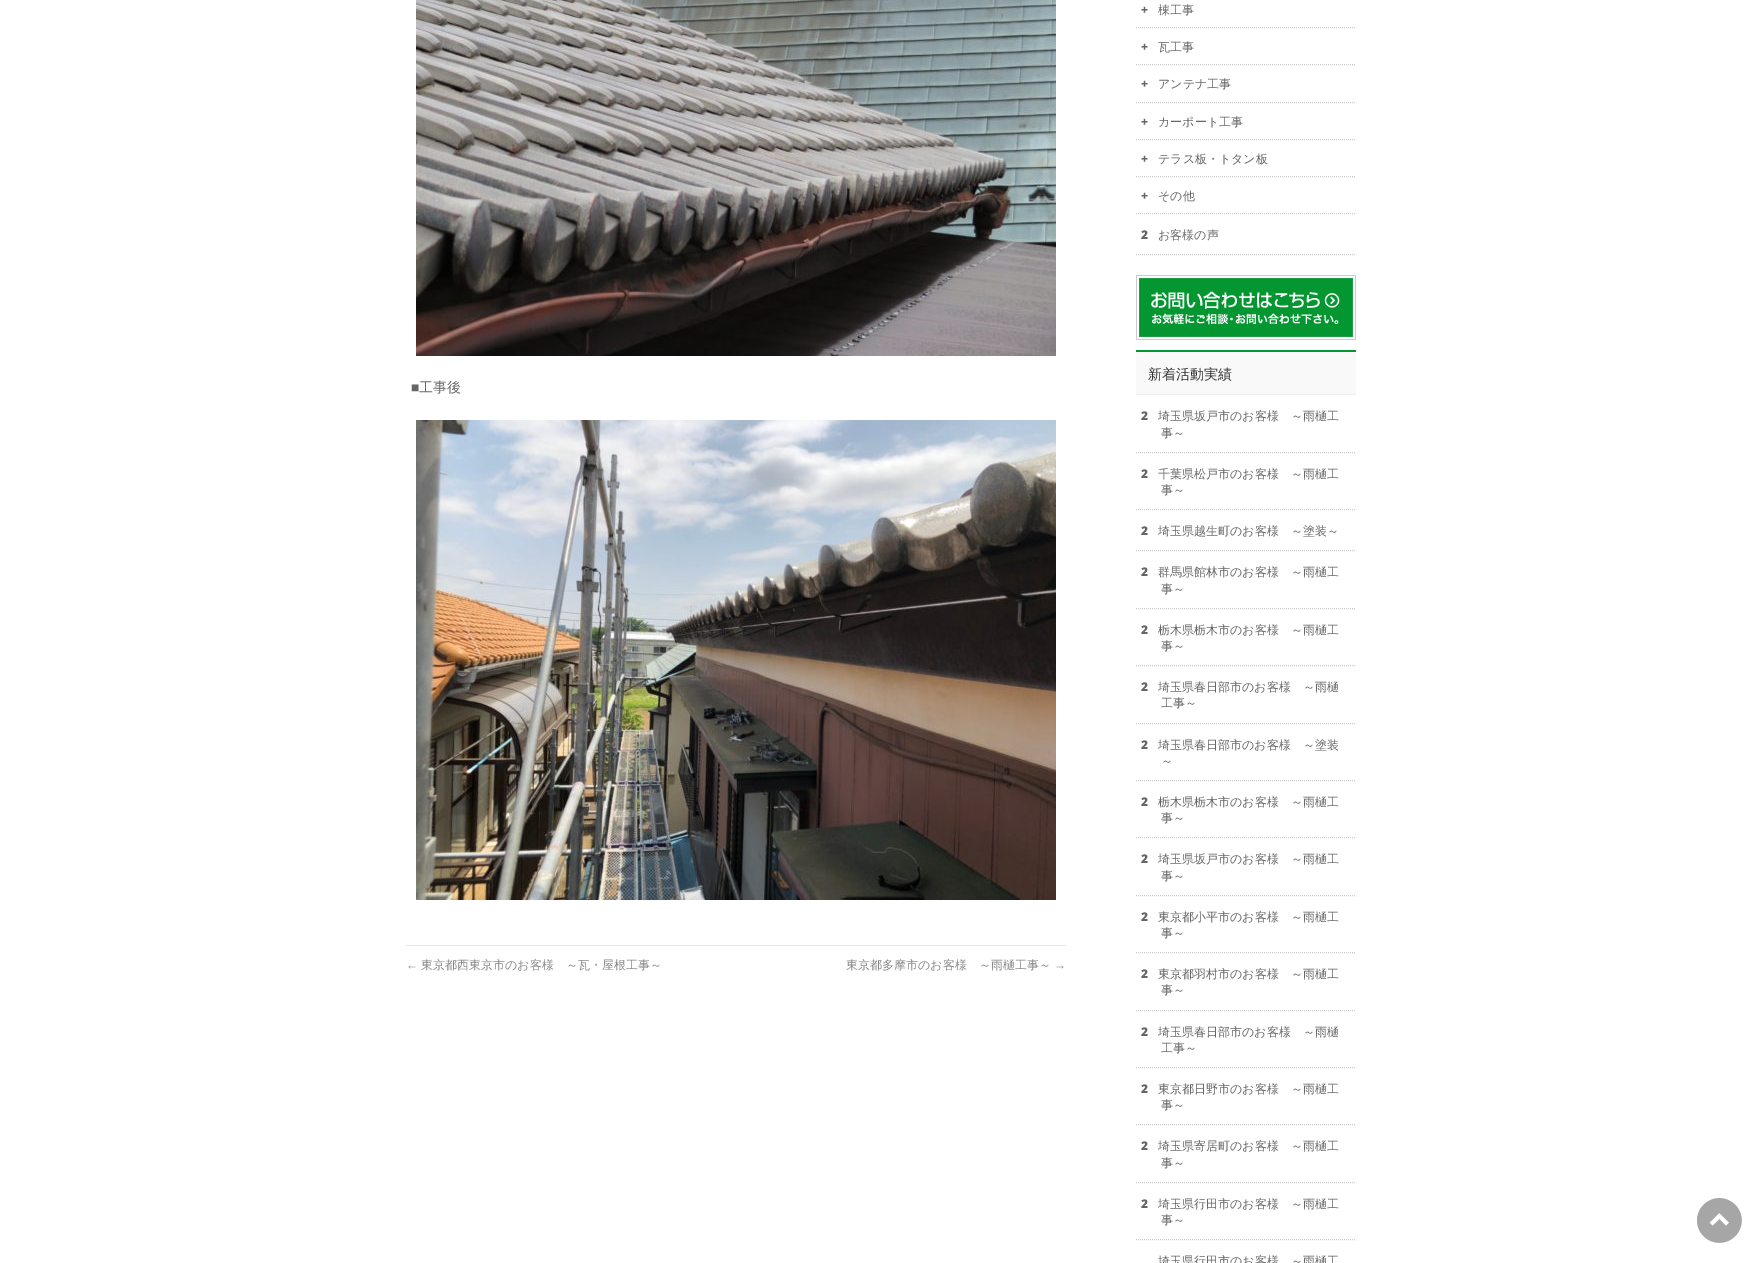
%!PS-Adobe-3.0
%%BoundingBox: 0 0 1762 1263
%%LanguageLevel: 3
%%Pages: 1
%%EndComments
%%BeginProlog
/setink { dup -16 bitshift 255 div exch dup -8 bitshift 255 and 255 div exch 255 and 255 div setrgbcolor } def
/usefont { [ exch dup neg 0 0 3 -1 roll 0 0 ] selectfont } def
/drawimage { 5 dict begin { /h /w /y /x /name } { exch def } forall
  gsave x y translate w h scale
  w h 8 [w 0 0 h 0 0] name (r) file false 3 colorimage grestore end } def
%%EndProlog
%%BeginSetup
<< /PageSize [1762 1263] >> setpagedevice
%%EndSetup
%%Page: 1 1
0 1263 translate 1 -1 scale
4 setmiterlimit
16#FFFFFF setink
0 0 1762 1263 rectfill
(img1.raw) 416 0 640 356 drawimage
/LiberationSans-Regular 14 usefont
16#666666 setink
411 392 moveto (■) show
/WenQuanYiZenHei-Medium 14 usefont
419 392 moveto (工事後) show
(img2.raw) 416 420 640 480 drawimage
16#E5E5E5 setink
406 945 660 1 rectfill
/LiberationSans-Regular 12 usefont
16#888888 setink
406 969 moveto (←) show
/WenQuanYiZenHei-Medium 12 usefont
421 969 moveto (東京都西東京市のお客様　～瓦・屋根工事～) show
846 969 moveto (東京都多摩市のお客様　～雨樋工事～) show
/LiberationSans-Regular 12 usefont
1054 969 moveto (→) show
16#CCCCCC setink
[1 1] 0 setdash
1136 213.5 moveto 1356 213.5 lineto stroke
/NotoSans-Black 12 usefont
16#666666 setink
1141 14 moveto (+) show
/WenQuanYiZenHei-Medium 12 usefont
1158 14 moveto (棟工事) show
16#CCCCCC setink
1136 27.5 moveto 1356 27.5 lineto stroke
/NotoSans-Black 12 usefont
16#666666 setink
1141 51 moveto (+) show
/WenQuanYiZenHei-Medium 12 usefont
1158 51 moveto (瓦工事) show
16#CCCCCC setink
1136 64.5 moveto 1356 64.5 lineto stroke
/NotoSans-Black 12 usefont
16#666666 setink
1141 88 moveto (+) show
/WenQuanYiZenHei-Medium 12 usefont
1158 88 moveto (アンテナ工事) show
16#CCCCCC setink
1136 102.5 moveto 1356 102.5 lineto stroke
/NotoSans-Black 12 usefont
16#666666 setink
1141 126 moveto (+) show
/WenQuanYiZenHei-Medium 12 usefont
1158 126 moveto (カーポート工事) show
16#CCCCCC setink
1136 139.5 moveto 1356 139.5 lineto stroke
/NotoSans-Black 12 usefont
16#666666 setink
1141 163 moveto (+) show
/WenQuanYiZenHei-Medium 12 usefont
1158 163 moveto (テラス板・トタン板) show
16#CCCCCC setink
1136 176.5 moveto 1356 176.5 lineto stroke
/NotoSans-Black 12 usefont
16#666666 setink
1141 200 moveto (+) show
/WenQuanYiZenHei-Medium 12 usefont
1158 200 moveto (その他) show
16#CCCCCC setink
1136 254.5 moveto 1356 254.5 lineto stroke
/NotoSans-Black 12 usefont
16#666666 setink
1141 239 moveto (2) show
/WenQuanYiZenHei-Medium 12 usefont
1158 239 moveto (お客様の声) show
16#049630 setink
1139 278 214 59 rectfill
(img3.raw) 1136 275 220 65 drawimage
[
    [1136 352 220 42 16#F9F9F9]
    [1136 350 220 2 16#049630]
    [1136 394 220 1 16#EFEFEF]
] { aload pop setink rectfill } forall
/WenQuanYiZenHei-Medium 14 usefont
16#333333 setink
1148 379 moveto (新着活動実績) show
16#CCCCCC setink
1136 452.5 moveto 1356 452.5 lineto stroke
/NotoSans-Black 12 usefont
16#666666 setink
1141 420 moveto (2) show
/WenQuanYiZenHei-Medium 12 usefont
1158 420 moveto (埼玉県坂戸市のお客様　～雨樋工) show
1161 437 moveto (事～) show
16#CCCCCC setink
1136 509.5 moveto 1356 509.5 lineto stroke
/NotoSans-Black 12 usefont
16#666666 setink
1141 478 moveto (2) show
/WenQuanYiZenHei-Medium 12 usefont
1158 478 moveto (千葉県松戸市のお客様　～雨樋工) show
1161 494 moveto (事～) show
16#CCCCCC setink
1136 550.5 moveto 1356 550.5 lineto stroke
/NotoSans-Black 12 usefont
16#666666 setink
1141 535 moveto (2) show
/WenQuanYiZenHei-Medium 12 usefont
1158 535 moveto (埼玉県越生町のお客様　～塗装～) show
16#CCCCCC setink
1136 608.5 moveto 1356 608.5 lineto stroke
/NotoSans-Black 12 usefont
16#666666 setink
1141 576 moveto (2) show
/WenQuanYiZenHei-Medium 12 usefont
1158 576 moveto (群馬県館林市のお客様　～雨樋工) show
1161 593 moveto (事～) show
16#CCCCCC setink
1136 665.5 moveto 1356 665.5 lineto stroke
/NotoSans-Black 12 usefont
16#666666 setink
1141 634 moveto (2) show
/WenQuanYiZenHei-Medium 12 usefont
1158 634 moveto (栃木県栃木市のお客様　～雨樋工) show
1161 650 moveto (事～) show
16#CCCCCC setink
1136 723.5 moveto 1356 723.5 lineto stroke
/NotoSans-Black 12 usefont
16#666666 setink
1141 691 moveto (2) show
/WenQuanYiZenHei-Medium 12 usefont
1158 691 moveto (埼玉県春日部市のお客様　～雨樋) show
1161 707 moveto (工事～) show
16#CCCCCC setink
1136 780.5 moveto 1356 780.5 lineto stroke
/NotoSans-Black 12 usefont
16#666666 setink
1141 749 moveto (2) show
/WenQuanYiZenHei-Medium 12 usefont
1158 749 moveto (埼玉県春日部市のお客様　～塗装) show
1161 765 moveto (～) show
16#CCCCCC setink
1136 837.5 moveto 1356 837.5 lineto stroke
/NotoSans-Black 12 usefont
16#666666 setink
1141 806 moveto (2) show
/WenQuanYiZenHei-Medium 12 usefont
1158 806 moveto (栃木県栃木市のお客様　～雨樋工) show
1161 822 moveto (事～) show
16#CCCCCC setink
1136 895.5 moveto 1356 895.5 lineto stroke
/NotoSans-Black 12 usefont
16#666666 setink
1141 863 moveto (2) show
/WenQuanYiZenHei-Medium 12 usefont
1158 863 moveto (埼玉県坂戸市のお客様　～雨樋工) show
1161 880 moveto (事～) show
16#CCCCCC setink
1136 952.5 moveto 1356 952.5 lineto stroke
/NotoSans-Black 12 usefont
16#666666 setink
1141 921 moveto (2) show
/WenQuanYiZenHei-Medium 12 usefont
1158 921 moveto (東京都小平市のお客様　～雨樋工) show
1161 937 moveto (事～) show
16#CCCCCC setink
1136 1010.5 moveto 1356 1010.5 lineto stroke
/NotoSans-Black 12 usefont
16#666666 setink
1141 978 moveto (2) show
/WenQuanYiZenHei-Medium 12 usefont
1158 978 moveto (東京都羽村市のお客様　～雨樋工) show
1161 994 moveto (事～) show
16#CCCCCC setink
1136 1067.5 moveto 1356 1067.5 lineto stroke
/NotoSans-Black 12 usefont
16#666666 setink
1141 1036 moveto (2) show
/WenQuanYiZenHei-Medium 12 usefont
1158 1036 moveto (埼玉県春日部市のお客様　～雨樋) show
1161 1052 moveto (工事～) show
16#CCCCCC setink
1136 1124.5 moveto 1356 1124.5 lineto stroke
/NotoSans-Black 12 usefont
16#666666 setink
1141 1093 moveto (2) show
/WenQuanYiZenHei-Medium 12 usefont
1158 1093 moveto (東京都日野市のお客様　～雨樋工) show
1161 1109 moveto (事～) show
16#CCCCCC setink
1136 1182.5 moveto 1356 1182.5 lineto stroke
/NotoSans-Black 12 usefont
16#666666 setink
1141 1150 moveto (2) show
/WenQuanYiZenHei-Medium 12 usefont
1158 1150 moveto (埼玉県寄居町のお客様　～雨樋工) show
1161 1167 moveto (事～) show
16#CCCCCC setink
1136 1239.5 moveto 1356 1239.5 lineto stroke
/NotoSans-Black 12 usefont
16#666666 setink
1141 1208 moveto (2) show
/WenQuanYiZenHei-Medium 12 usefont
[
    [(埼玉県行田市のお客様　～雨樋工) 1158 1208]
    [(事～) 1161 1224]
    [(埼玉県行田市のお客様　～雨樋工) 1158 1265]
] { aload pop moveto show } forall
(img4.raw) 1697 1198 45 45 drawimage
showpage
%%EOF
